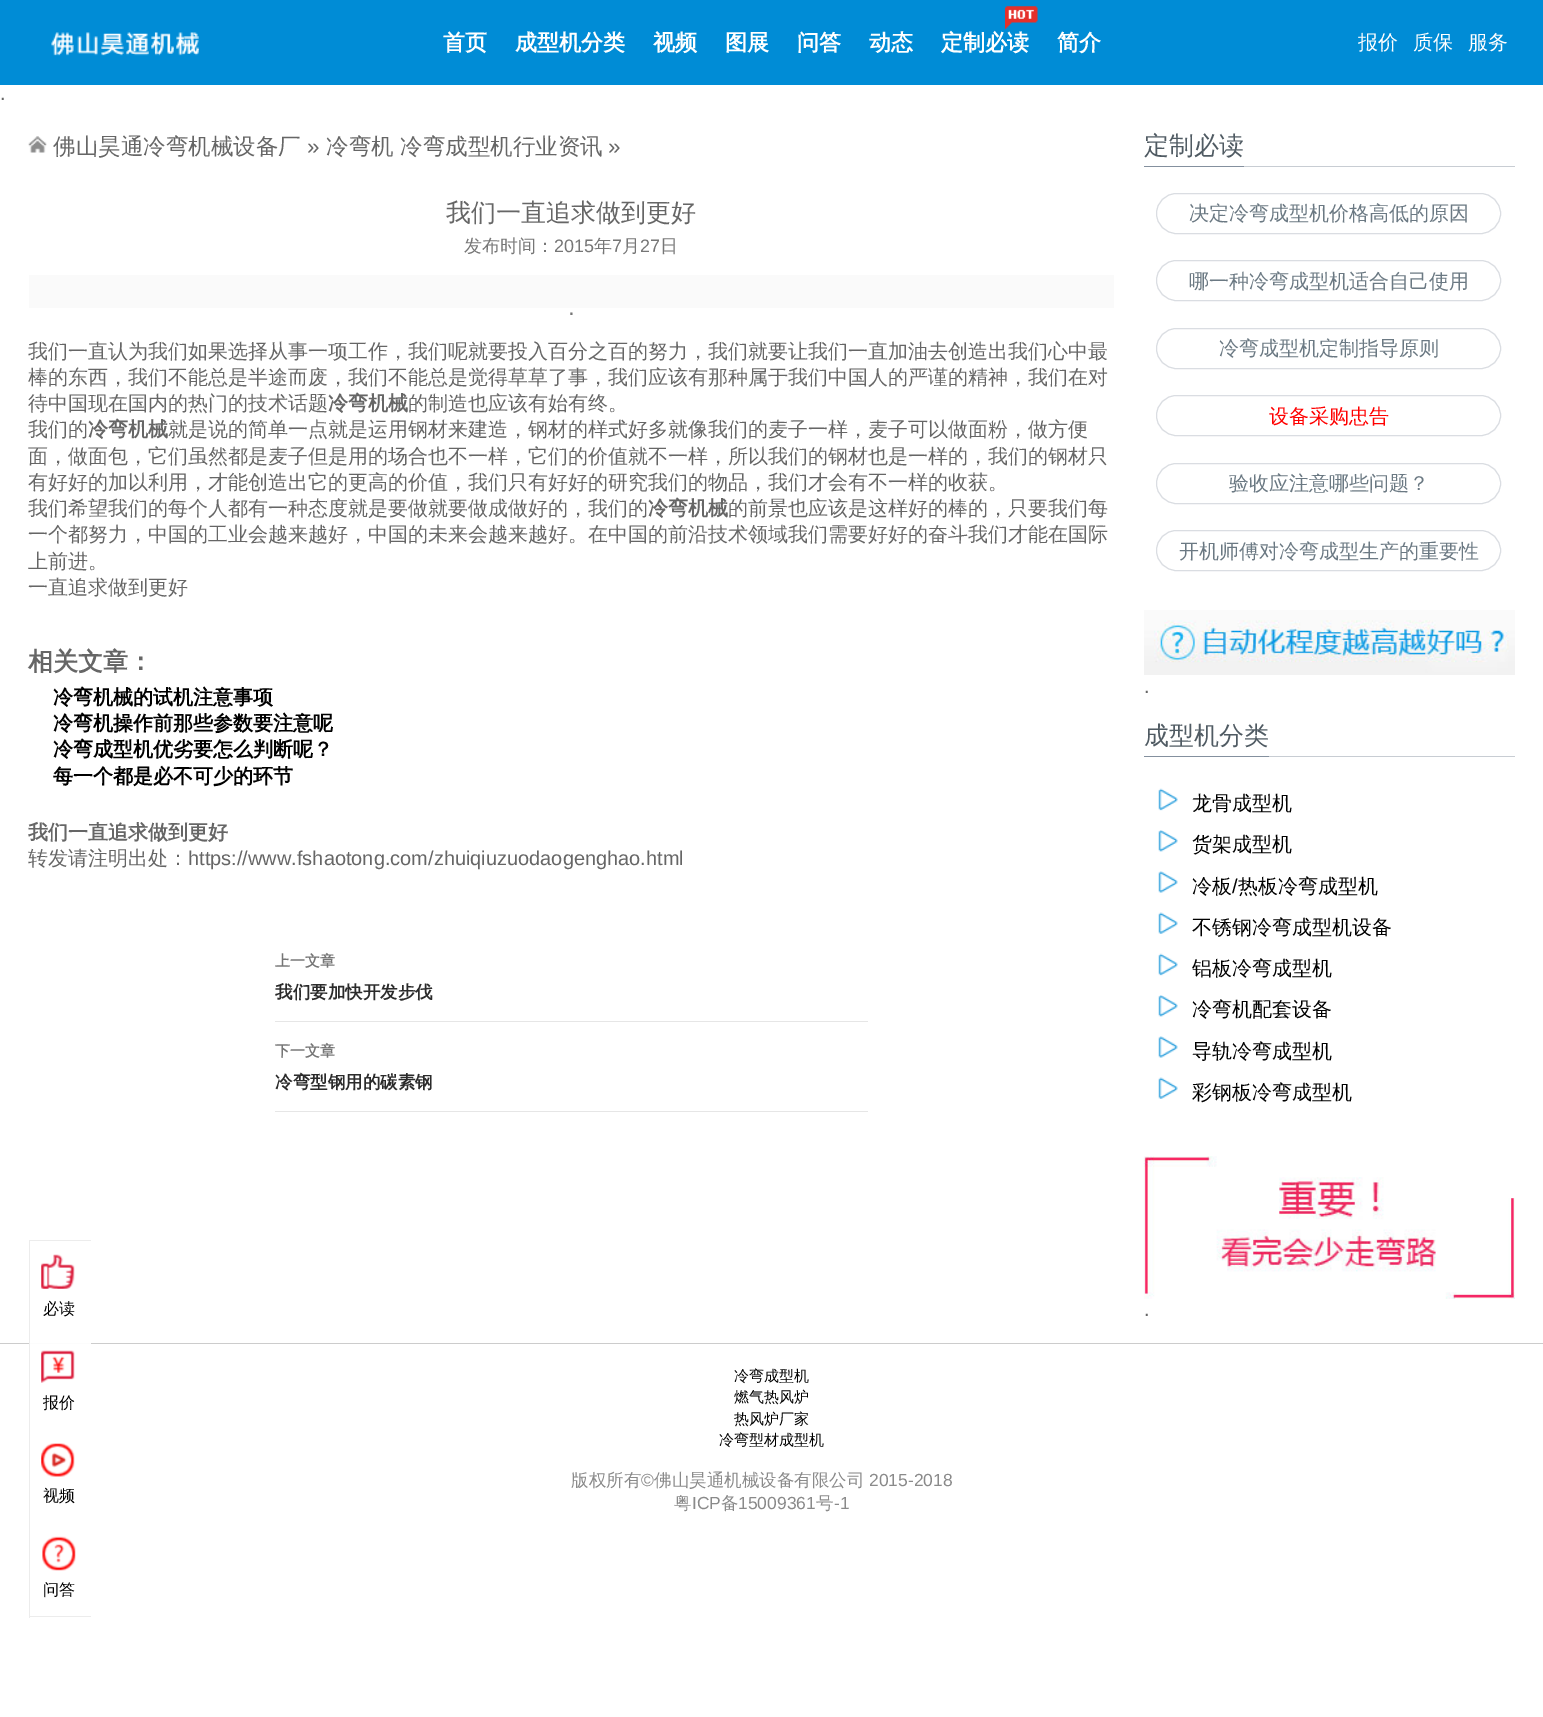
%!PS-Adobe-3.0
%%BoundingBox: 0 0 1543 1717
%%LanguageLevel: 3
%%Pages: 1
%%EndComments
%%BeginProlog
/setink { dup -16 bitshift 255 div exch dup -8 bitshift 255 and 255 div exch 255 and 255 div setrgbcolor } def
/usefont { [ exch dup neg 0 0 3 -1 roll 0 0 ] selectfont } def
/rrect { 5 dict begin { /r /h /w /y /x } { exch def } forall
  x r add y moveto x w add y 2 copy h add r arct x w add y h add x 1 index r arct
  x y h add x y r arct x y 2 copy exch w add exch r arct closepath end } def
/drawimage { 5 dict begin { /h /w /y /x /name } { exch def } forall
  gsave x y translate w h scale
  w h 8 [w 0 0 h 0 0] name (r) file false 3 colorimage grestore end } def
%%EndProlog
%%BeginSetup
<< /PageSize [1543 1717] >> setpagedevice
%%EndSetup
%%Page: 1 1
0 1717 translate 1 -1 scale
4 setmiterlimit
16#FFFFFF setink
0 0 1543 1717 rectfill
16#008CD6 setink
0 0 1543 85 rectfill
/WenQuanYiZenHei-Bold 22 usefont
16#FFFFFF setink
[
    [(首页) 443 50]
    [(成型机分类) 515 50]
    [(视频) 653 50]
    [(图展) 725 50]
    [(问答) 797 50]
    [(动态) 869 50]
] { aload pop moveto show } forall
(img1.raw) 1005 6 33 23 drawimage
941 50 moveto (定制必读) show
1057 50 moveto (简介) show
(img2.raw) 51 32 148 24 drawimage
/WenQuanYiZenHei-Medium 20 usefont
[
    [(报价) 1358 49]
    [(质保) 1413 49]
    [(服务) 1468 49]
] { aload pop moveto show } forall
/LiberationSans-Regular 20 usefont
16#666666 setink
0 100 moveto (.) show
(img3.raw) 28 136 19 17 drawimage
/WenQuanYiZenHei-Medium 22.5 usefont
53 154 moveto (佛山昊通冷弯机械设备厂) show
/LiberationSans-Regular 22.5 usefont
307 154 moveto (») show
/WenQuanYiZenHei-Medium 22.5 usefont
326 154 moveto (冷弯机 冷弯成型机行业资讯) show
/LiberationSans-Regular 22.5 usefont
608 154 moveto (») show
/WenQuanYiZenHei-Medium 25 usefont
446 221 moveto (我们一直追求做到更好) show
/WenQuanYiZenHei-Medium 18 usefont
16#767676 setink
464 252 moveto (发布时间：) show
/LiberationSans-Regular 18 usefont
554 252 moveto (2015) show
/WenQuanYiZenHei-Medium 18 usefont
594 252 moveto (年) show
/LiberationSans-Regular 18 usefont
612 252 moveto (7) show
/WenQuanYiZenHei-Medium 18 usefont
622 252 moveto (月) show
/LiberationSans-Regular 18 usefont
640 252 moveto (27) show
/WenQuanYiZenHei-Medium 18 usefont
660 252 moveto (日) show
16#FAFAFA setink
29 275 1085 33 rectfill
/LiberationSans-Regular 24 usefont
16#767676 setink
568 315 moveto (.) show
/WenQuanYiZenHei-Medium 20 usefont
16#666666 setink
[
    [(我们一直认为我们如果选择从事一项工作，我们呢就要投入百分之百的努力，我们就要让我们一直加油去创造出我们心中最) 28 358]
    [(棒的东西，我们不能总是半途而废，我们不能总是觉得草草了事，我们应该有那种属于我们中国人的严谨的精神，我们在对) 28 384]
    [(待中国现在国内的热门的技术话题) 28 410]
] { aload pop moveto show } forall
/WenQuanYiZenHei-Bold 20 usefont
328 410 moveto (冷弯机械) show
/WenQuanYiZenHei-Medium 20 usefont
408 410 moveto (的制造也应该有始有终。) show
28 436 moveto (我们的) show
/WenQuanYiZenHei-Bold 20 usefont
88 436 moveto (冷弯机械) show
/WenQuanYiZenHei-Medium 20 usefont
[
    [(就是说的简单一点就是运用钢材来建造，钢材的样式好多就像我们的麦子一样，麦子可以做面粉，做方便) 168 436]
    [(面，做面包，它们虽然都是麦子但是用的场合也不一样，它们的价值就不一样，所以我们的钢材也是一样的，我们的钢材只) 28 463]
    [(有好好的加以利用，才能创造出它的更高的价值，我们只有好好的研究我们的物品，我们才会有不一样的收获。) 28 489]
    [(我们希望我们的每个人都有一种态度就是要做就要做成做好的，我们的) 28 515]
] { aload pop moveto show } forall
/WenQuanYiZenHei-Bold 20 usefont
648 515 moveto (冷弯机械) show
/WenQuanYiZenHei-Medium 20 usefont
[
    [(的前景也应该是这样好的棒的，只要我们每) 728 515]
    [(一个都努力，中国的工业会越来越好，中国的未来会越来越好。在中国的前沿技术领域我们需要好好的奋斗我们才能在国际) 28 541]
    [(上前进。) 28 568]
    [(一直追求做到更好) 28 594]
] { aload pop moveto show } forall
/WenQuanYiZenHei-Bold 25 usefont
28 670 moveto (相关文章：) show
/WenQuanYiZenHei-Bold 20 usefont
16#000000 setink
[
    [(冷弯机械的试机注意事项) 53 704]
    [(冷弯机操作前那些参数要注意呢) 53 730]
    [(冷弯成型机优劣要怎么判断呢？) 53 756]
    [(每一个都是必不可少的环节) 53 783]
] { aload pop moveto show } forall
16#666666 setink
28 839 moveto (我们一直追求做到更好) show
/WenQuanYiZenHei-Medium 20 usefont
28 865 moveto (转发请注明出处：) show
/LiberationSans-Regular 20 usefont
188 865 moveto (https://www.fshaotong.com/zhuiqiuzuodaogenghao.html) show
16#E6E6E6 setink
275 1021 593 1 rectfill
/WenQuanYiZenHei-Bold 15 usefont
16#767676 setink
275 966 moveto (上一文章) show
/WenQuanYiZenHei-Bold 17.5 usefont
16#2B2B2B setink
275 998 moveto (我们要加快开发步伐) show
16#E6E6E6 setink
275 1111 593 1 rectfill
/WenQuanYiZenHei-Bold 15 usefont
16#767676 setink
275 1056 moveto (下一文章) show
/WenQuanYiZenHei-Bold 17.5 usefont
16#2B2B2B setink
275 1088 moveto (冷弯型钢用的碳素钢) show
16#C8CDD3 setink
1244 166 271 1 rectfill
16#84909E setink
1144 166 100 1 rectfill
/WenQuanYiZenHei-Medium 25 usefont
16#505B63 setink
1144 154 moveto (定制必读) show
16#DADDE2 setink
1156.5 193.5 344 40 20 rrect stroke
/WenQuanYiZenHei-Medium 20 usefont
16#6B7983 setink
1189 220 moveto (决定冷弯成型机价格高低的原因) show
16#DADDE2 setink
1156.5 260.5 344 40 20 rrect stroke
16#6B7983 setink
1189 288 moveto (哪一种冷弯成型机适合自己使用) show
16#DADDE2 setink
1156.5 328.5 344 40 20 rrect stroke
16#6B7983 setink
1219 355 moveto (冷弯成型机定制指导原则) show
16#DADDE2 setink
1156.5 395.5 344 40 20 rrect stroke
16#FF0000 setink
1269 423 moveto (设备采购忠告) show
16#DADDE2 setink
1156.5 463.5 344 40 20 rrect stroke
16#6B7983 setink
1229 490 moveto (验收应注意哪些问题？) show
16#DADDE2 setink
1156.5 530.5 344 40 20 rrect stroke
16#6B7983 setink
1179 558 moveto (开机师傅对冷弯成型生产的重要性) show
(img4.raw) 1144 610 371 65 drawimage
/LiberationSans-Regular 20 usefont
16#666666 setink
1144 693 moveto (.) show
16#C8CDD3 setink
1269 756 246 1 rectfill
16#84909E setink
1144 756 125 1 rectfill
/WenQuanYiZenHei-Medium 25 usefont
16#505B63 setink
1144 744 moveto (成型机分类) show
(img5.raw) 1158 788 20 23 drawimage
/WenQuanYiZenHei-Medium 20 usefont
16#000000 setink
1192 810 moveto (龙骨成型机) show
(img6.raw) 1158 830 20 22 drawimage
1192 851 moveto (货架成型机) show
(img7.raw) 1158 871 20 22 drawimage
1192 893 moveto (冷板) show
/LiberationSans-Regular 20 usefont
1232 893 moveto (/) show
/WenQuanYiZenHei-Medium 20 usefont
1238 893 moveto (热板冷弯成型机) show
(img8.raw) 1158 912 20 22 drawimage
1192 934 moveto (不锈钢冷弯成型机设备) show
(img5.raw) 1158 953 20 23 drawimage
1192 975 moveto (铝板冷弯成型机) show
(img6.raw) 1158 995 20 22 drawimage
1192 1016 moveto (冷弯机配套设备) show
(img7.raw) 1158 1036 20 22 drawimage
1192 1058 moveto (导轨冷弯成型机) show
(img8.raw) 1158 1077 20 22 drawimage
1192 1099 moveto (彩钢板冷弯成型机) show
(img9.raw) 1143 1156 372 143 drawimage
/LiberationSans-Regular 20 usefont
16#666666 setink
1144 1316 moveto (.) show
[
    [29 1240 62 1 16#ECECEC]
    [29 1616 62 1 16#ECECEC]
    [0 1343 1543 1 16#CCCCCC]
    [29 1343 62 1 16#FCFCFC]
    [29 1240 1 378 16#ECECEC]
] { aload pop setink rectfill } forall
(img10.raw) 41 1254 34 35 drawimage
/WenQuanYiZenHei-Medium 16 usefont
16#000000 setink
43 1314 moveto (必读) show
(img11.raw) 41 1350 34 33 drawimage
43 1408 moveto (报价) show
(img12.raw) 41 1443 34 34 drawimage
43 1501 moveto (视频) show
(img13.raw) 42 1536 34 35 drawimage
43 1595 moveto (问答) show
/WenQuanYiZenHei-Medium 15 usefont
[
    [(冷弯成型机) 734 1381]
    [(燃气热风炉) 734 1402]
    [(热风炉厂家) 734 1424]
    [(冷弯型材成型机) 719 1445]
] { aload pop moveto show } forall
/WenQuanYiZenHei-Medium 17.5 usefont
16#8A8A8A setink
571 1486 moveto (版权所有) show
/LiberationSans-Regular 17.5 usefont
641 1486 moveto (©) show
/WenQuanYiZenHei-Medium 17.5 usefont
654 1486 moveto (佛山昊通机械设备有限公司) show
/LiberationSans-Regular 17.5 usefont
869 1486 moveto (2015-2018) show
/WenQuanYiZenHei-Medium 17.5 usefont
674 1509 moveto (粤) show
/LiberationSans-Regular 17.5 usefont
692 1509 moveto (ICP) show
/WenQuanYiZenHei-Medium 17.5 usefont
721 1509 moveto (备) show
/LiberationSans-Regular 17.5 usefont
738 1509 moveto (15009361) show
/WenQuanYiZenHei-Medium 17.5 usefont
816 1509 moveto (号) show
/LiberationSans-Regular 17.5 usefont
834 1509 moveto (-1) show
showpage
%%EOF
